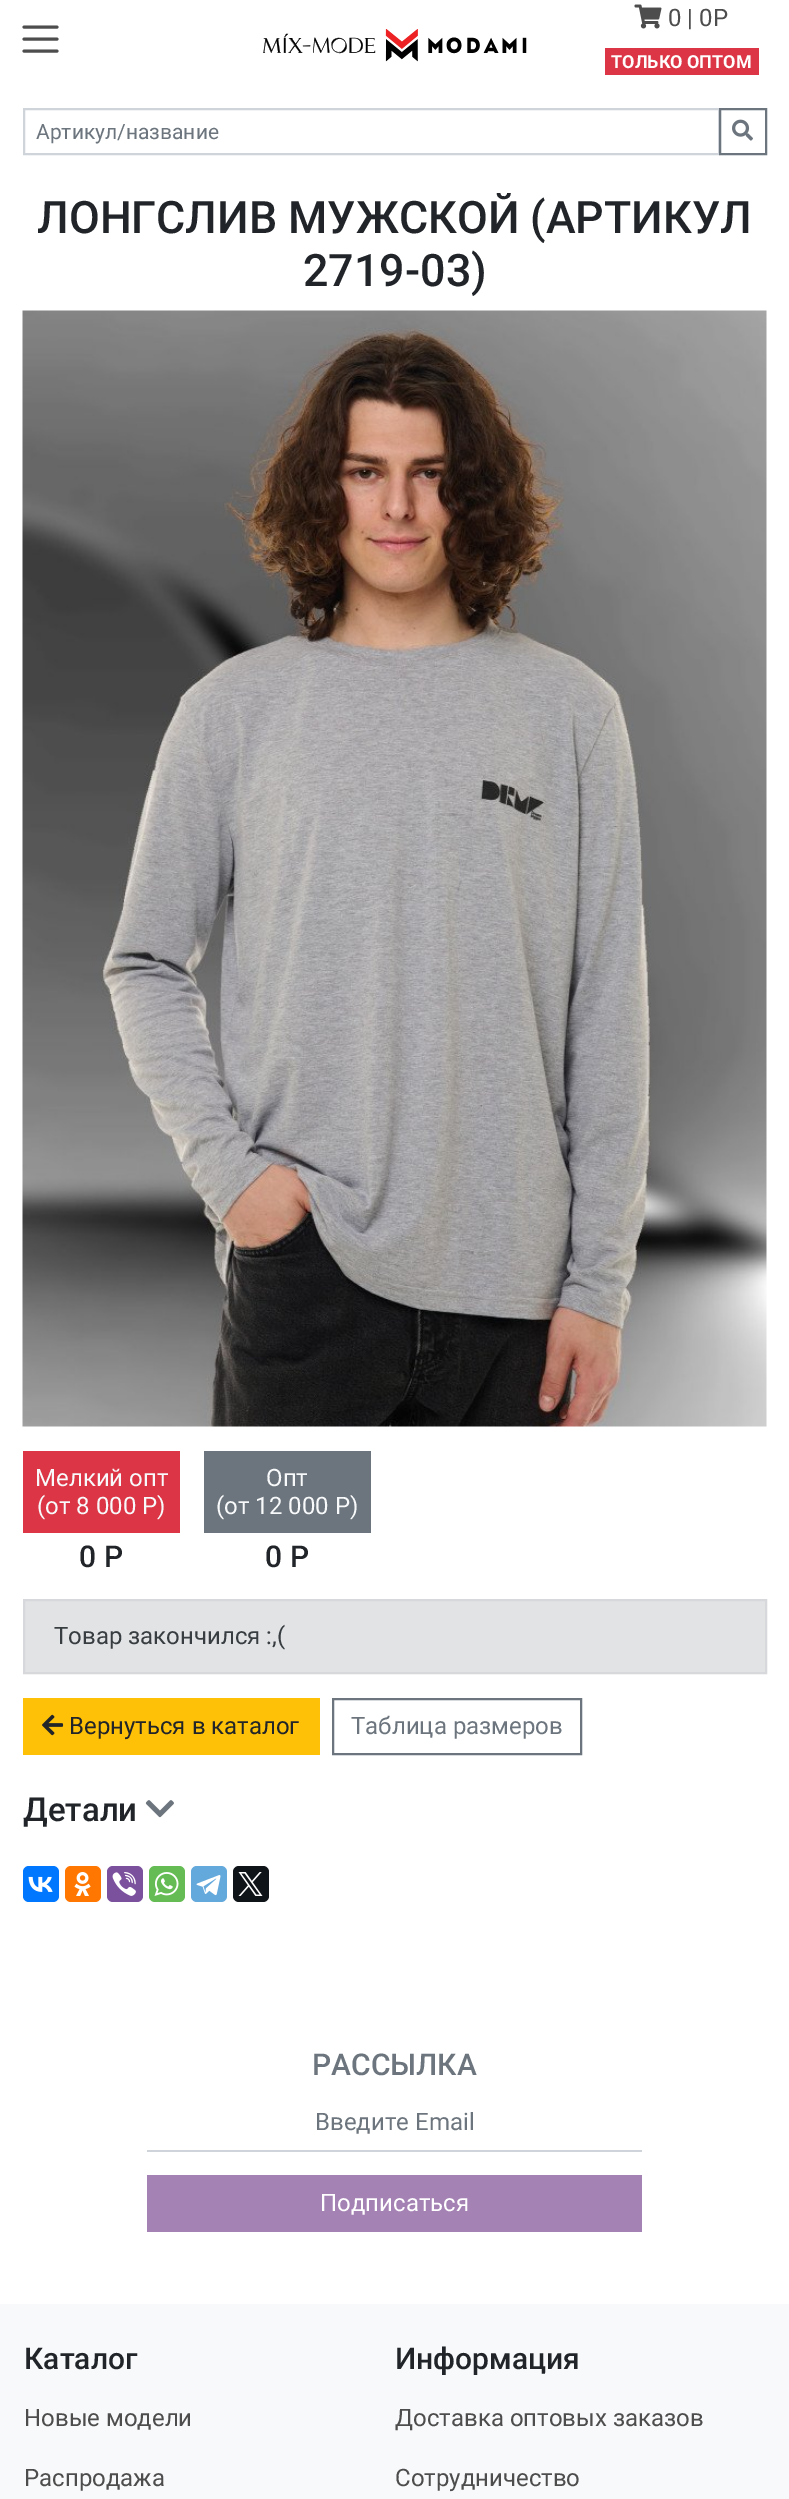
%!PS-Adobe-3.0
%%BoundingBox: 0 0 789 2499
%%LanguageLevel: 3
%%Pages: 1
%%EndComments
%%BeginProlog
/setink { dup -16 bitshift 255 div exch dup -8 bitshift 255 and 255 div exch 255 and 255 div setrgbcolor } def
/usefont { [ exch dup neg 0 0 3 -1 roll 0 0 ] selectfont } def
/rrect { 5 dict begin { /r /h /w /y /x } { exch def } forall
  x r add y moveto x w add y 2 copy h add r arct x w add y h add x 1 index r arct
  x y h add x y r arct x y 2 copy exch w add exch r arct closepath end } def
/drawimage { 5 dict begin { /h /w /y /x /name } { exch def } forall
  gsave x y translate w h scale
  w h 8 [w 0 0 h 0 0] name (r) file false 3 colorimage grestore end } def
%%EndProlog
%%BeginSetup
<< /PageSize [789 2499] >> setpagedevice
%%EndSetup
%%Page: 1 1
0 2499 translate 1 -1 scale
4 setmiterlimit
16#FFFFFF setink
0 0 789 2499 rectfill
16#4D4D4D setink
3 setlinewidth
1 setlinecap
24 27 moveto 57 27 lineto 24 39 moveto 57 39 lineto 24 51 moveto 57 51 lineto stroke
(img1.raw) 263 29 264 33 drawimage
(img2.raw) 634 4 28 25 drawimage
/Roboto-Regular 24 usefont
668 26 moveto (0 | 0Р) show
16#DC3545 setink
605 48 154 27 rectfill
/Roboto-Bold 18 usefont
16#FFFFFF setink
611 68 moveto (ТОЛЬКО ОПТОМ) show
16#CED4DA setink
2 setlinewidth
0 setlinecap
24 109 695 45 rectstroke
/Roboto-Regular 21 usefont
16#6C757D setink
36 139 moveto (Артикул/название) show
720 109 46 45 rectstroke
(img3.raw) 732 119 21 22 drawimage
/Roboto-Medium 44.8 usefont
16#212529 setink
37 233 moveto (ЛОНГСЛИВ МУЖСКОЙ \(АРТИКУЛ) show
303 286 moveto (2719-03\)) show
(img4.raw) 22 310 745 1117 drawimage
16#DC3545 setink
23 1451 157 82 rectfill
/Roboto-Regular 24 usefont
16#F8F9FA setink
35 1486 moveto (Мелкий опт) show
37 1514 moveto (\(от 8 000 Р\)) show
/Roboto-Medium 30 usefont
16#212529 setink
79 1567 moveto (0 Р) show
16#6C757D setink
204 1451 167 82 rectfill
/Roboto-Regular 24 usefont
16#F8F9FA setink
266 1486 moveto (Опт) show
216 1514 moveto (\(от 12 000 Р\)) show
/Roboto-Medium 30 usefont
16#212529 setink
265 1567 moveto (0 Р) show
16#E2E3E5 setink
24 1600 moveto 766 1600 lineto 766 1673 lineto 24 1673 lineto closepath gsave fill grestore
16#D6D8DB setink
stroke
/Roboto-Regular 24 usefont
16#383D41 setink
54 1644 moveto (Товар закончился :,\() show
16#FFC107 setink
23 1698 297 57 rectfill
(img5.raw) 42 1714 22 22 drawimage
16#212529 setink
69 1734 moveto (Вернуться в каталог) show
16#6C757D setink
333 1699 248 55 rectstroke
351 1734 moveto (Таблица размеров) show
/Roboto-Medium 33 usefont
16#212529 setink
23 1821 moveto (Детали) show
(img6.raw) 145 1800 29 18 drawimage
16#0077FF setink
23 1866 36 36 6 rrect fill
(img7.raw) 28 1876 25 16 drawimage
16#FF7700 setink
65 1866 36 36 6 rrect fill
(img8.raw) 74 1872 17 24 drawimage
16#7B519D setink
107 1866 36 36 6 rrect fill
(img9.raw) 112 1872 24 24 drawimage
16#65BC54 setink
149 1866 36 36 6 rrect fill
(img10.raw) 154 1872 25 24 drawimage
16#64A9DC setink
191 1866 36 36 6 rrect fill
(img11.raw) 196 1875 25 21 drawimage
16#0F1419 setink
233 1866 36 36 6 rrect fill
(img12.raw) 238 1872 25 24 drawimage
/Roboto-Medium 30 usefont
16#6C757D setink
312 2075 moveto (РАССЫЛКА) show
16#CED4DA setink
147 2150 495 2 rectfill
/Roboto-Regular 24 usefont
16#6C757D setink
315 2130 moveto (Введите Email) show
16#A582B4 setink
147 2175 495 57 rectfill
16#FFFFFF setink
320 2211 moveto (Подписаться) show
16#F8F9FA setink
0 2304 789 195 rectfill
/Roboto-Medium 30 usefont
16#212529 setink
24 2369 moveto (Каталог) show
/Roboto-Regular 24 usefont
16#4D4D4D setink
24 2426 moveto (Новые модели) show
24 2486 moveto (Распродажа) show
/Roboto-Medium 30 usefont
16#212529 setink
395 2369 moveto (Информация) show
/Roboto-Regular 24 usefont
16#4D4D4D setink
395 2426 moveto (Доставка оптовых заказов) show
395 2486 moveto (Сотрудничество) show
showpage
%%EOF
